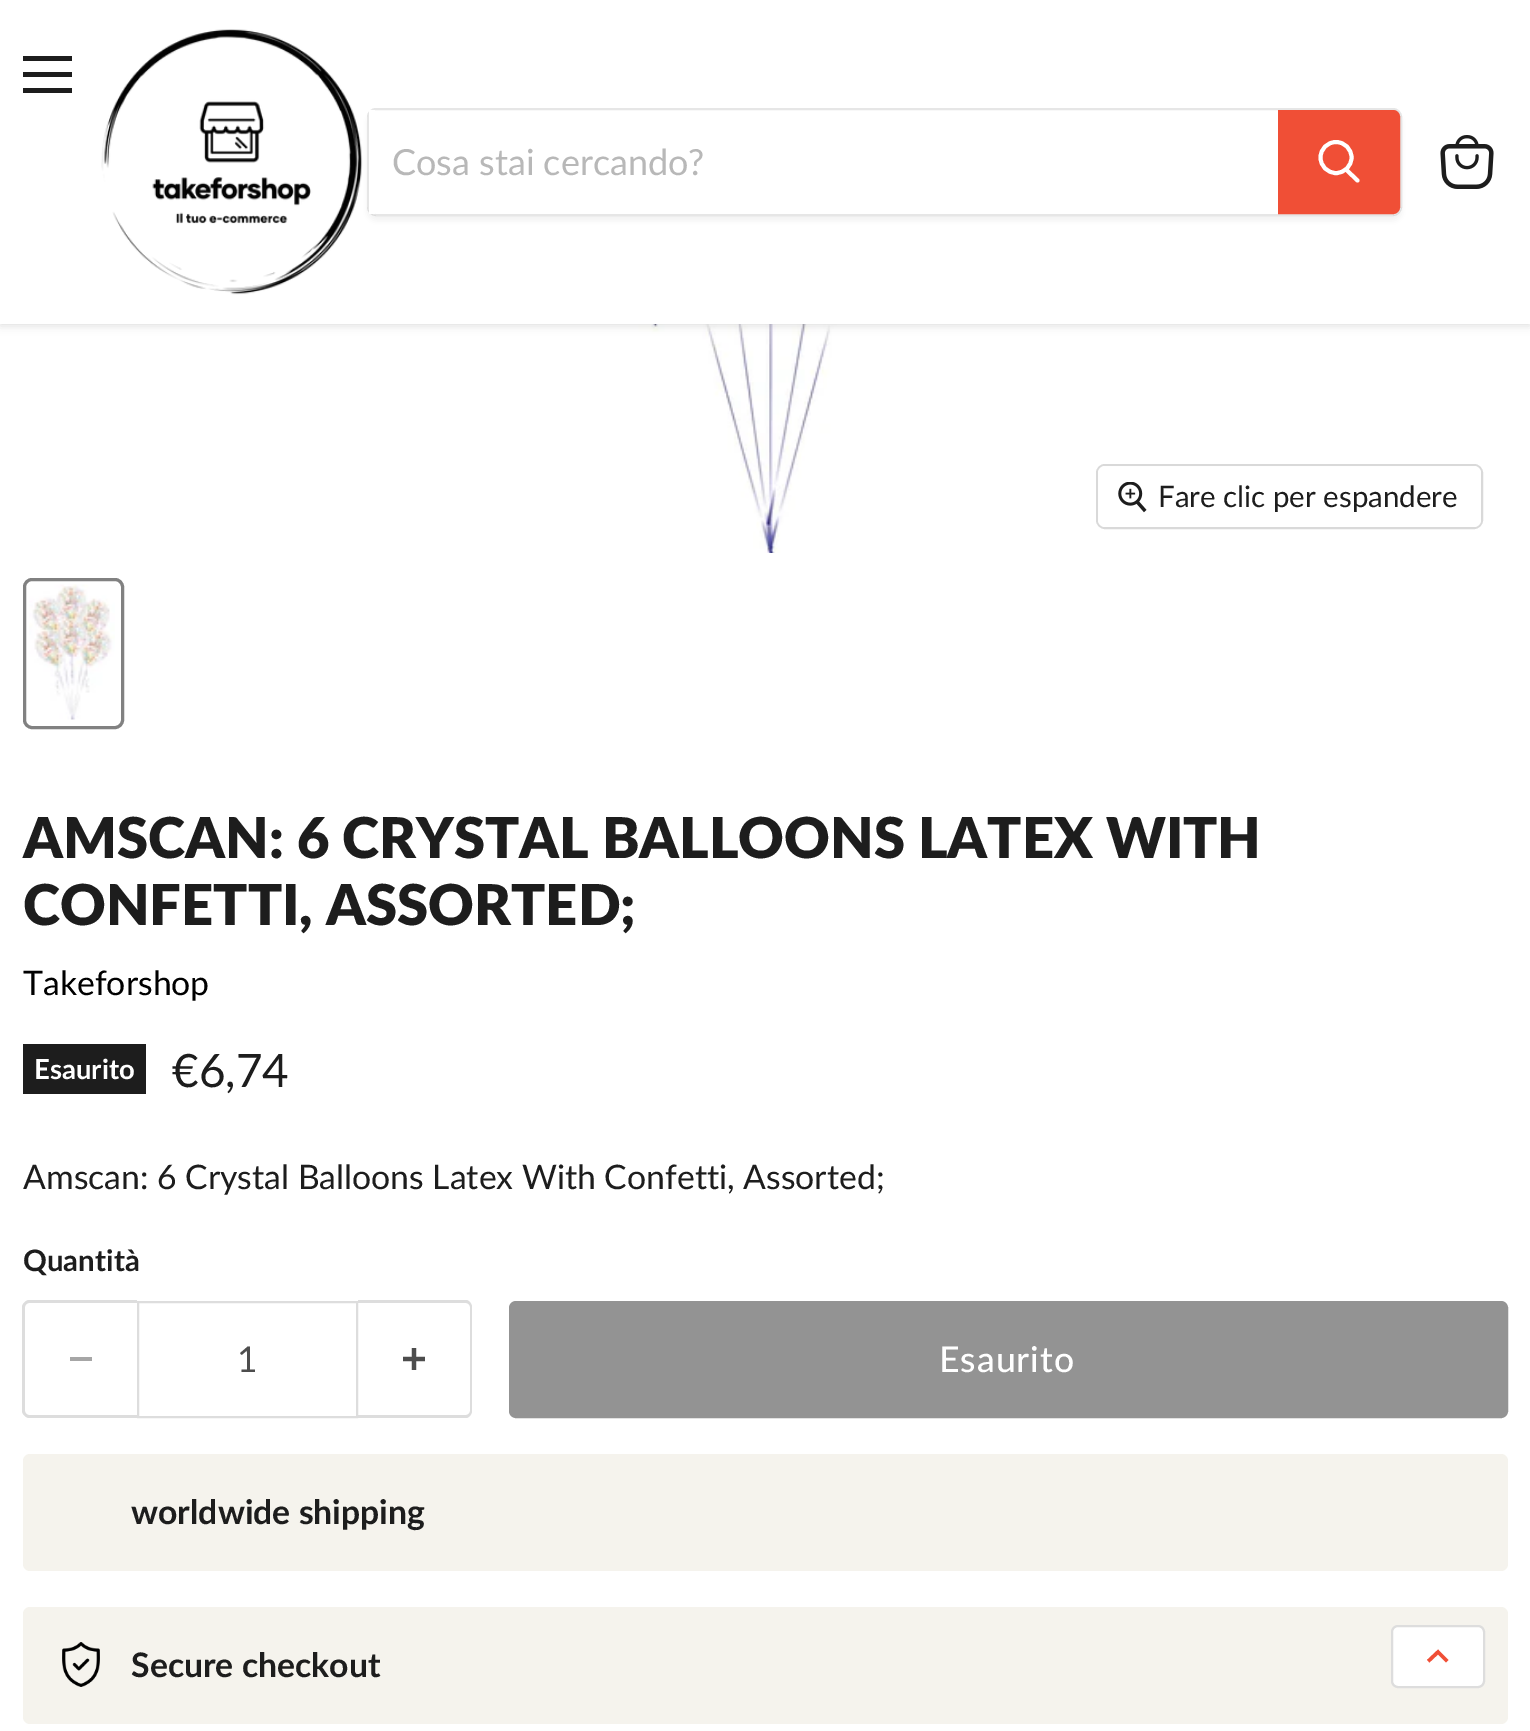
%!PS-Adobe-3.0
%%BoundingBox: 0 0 1530 1731
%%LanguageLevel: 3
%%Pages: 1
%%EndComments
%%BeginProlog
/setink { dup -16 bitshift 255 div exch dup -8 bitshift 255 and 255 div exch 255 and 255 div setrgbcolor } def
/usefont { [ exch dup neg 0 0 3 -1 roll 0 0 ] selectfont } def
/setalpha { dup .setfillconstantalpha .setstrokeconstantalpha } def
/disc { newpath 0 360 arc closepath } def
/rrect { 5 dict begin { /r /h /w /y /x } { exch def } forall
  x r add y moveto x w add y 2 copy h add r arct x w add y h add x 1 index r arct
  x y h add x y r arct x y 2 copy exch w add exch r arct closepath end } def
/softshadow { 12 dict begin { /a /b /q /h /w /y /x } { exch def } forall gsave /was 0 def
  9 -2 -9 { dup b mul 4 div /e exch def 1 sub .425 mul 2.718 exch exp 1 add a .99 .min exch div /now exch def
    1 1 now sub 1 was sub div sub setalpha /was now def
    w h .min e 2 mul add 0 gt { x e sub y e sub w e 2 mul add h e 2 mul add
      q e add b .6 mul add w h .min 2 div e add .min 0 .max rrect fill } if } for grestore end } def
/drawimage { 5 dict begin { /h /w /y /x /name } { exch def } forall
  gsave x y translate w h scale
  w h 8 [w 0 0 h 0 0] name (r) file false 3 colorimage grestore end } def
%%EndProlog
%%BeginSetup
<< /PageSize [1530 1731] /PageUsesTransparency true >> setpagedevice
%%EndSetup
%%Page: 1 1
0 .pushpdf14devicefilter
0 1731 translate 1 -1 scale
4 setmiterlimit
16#FFFFFF setink
0 0 1530 1731 rectfill
(img3.raw) 489 324 570 229 drawimage
16#808080 setink
0 2 1530 324 0 4.5 0.25 softshadow
[
    [0 0 1530 324 16#FFFFFF]
    [23 56 49 5 16#1D1D1D]
    [23 72 49 5 16#1D1D1D]
    [23 88 49 5 16#1D1D1D]
] { aload pop setink rectfill } forall
(img1.raw) 101 29 262 266 drawimage
gsave
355 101 moveto 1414 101 lineto 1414 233 lineto 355 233 lineto closepath 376 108 moveto 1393 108 lineto 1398 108 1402 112 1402 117 curveto 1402 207 lineto 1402 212 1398 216 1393 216 curveto 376 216 lineto 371 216 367 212 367 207 curveto 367 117 lineto 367 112 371 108 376 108 curveto closepath eoclip newpath
16#808080 setink
367 113 1035 108 9 3.5 0.11 softshadow
grestore
0.2 setalpha
16#808080 setink
2 setlinewidth
368 109 1033 106 8 rrect stroke
1 setalpha
16#FFFFFF setink
369 110 6 104 rectfill
/Lato-Regular 36 usefont
16#B8B8B8 setink
392 175 moveto (Cosa stai cercando?) show
16#F04F36 setink
1279 111 moveto 1393 111 lineto 1396.5 111 1399 113.5 1399 117 curveto 1399 207 lineto 1399 210.5 1396.5 213 1393 213 curveto 1279 213 lineto closepath gsave fill grestore
stroke
16#FFFFFF setink
3.9 setlinewidth
1 setlinecap
1357.5 180.5 moveto 1346.5 170 lineto stroke
0 setlinecap
1336 157.5 15.5 disc stroke
(img2.raw) 1440 135 54 54 drawimage
16#D9D9D9 setink
2 setlinewidth
1097 465 385 63 8 rrect stroke
0.9 setalpha
16#FFFFFF setink
1098 466 383 61 7 rrect fill
1 setalpha
(img4.raw) 1118 482 29 31 drawimage
/Lato-Regular 29.5 usefont
16#1D1D1D setink
1158 507 moveto (Fare clic per espandere) show
16#818181 setink
3 setlinewidth
24.5 579.5 98 148 7.5 rrect stroke
(img5.raw) 29 584 86 136 drawimage
/Lato-ExtraBold 56.25 usefont
16#1D1D1D setink
23 858 moveto (AMSCAN: 6 CRYSTAL BALLOONS LATEX WITH) show
23 925 moveto (CONFETTI, ASSORTED;) show
/Lato-Regular 33.75 usefont
16#000000 setink
23 995 moveto (Takeforshop) show
16#1D1D1D setink
23 1044 123 50 rectfill
/Lato-Bold 27.5 usefont
16#FFFFFF setink
34 1079 moveto (Esaurito) show
/Lato-Regular 46 usefont
16#1D1D1D setink
172 1087 moveto (€6,74) show
/Lato-Regular 33.75 usefont
23 1189 moveto (Amscan: 6 Crystal Balloons Latex With Confetti, Assorted;) show
/Lato-Bold 29.5 usefont
23 1271 moveto (Quantità) show
16#DDDDDD setink
29 1300 moveto 137 1300 lineto 137 1418 lineto 29 1418 lineto 26 1418 22 1414 22 1411 curveto 22 1307 lineto 22 1304 26 1300 29 1300 curveto closepath 29 1303 moveto 137 1303 lineto 137 1415 lineto 29 1415 lineto 27 1415 25 1413 25 1411 curveto 25 1307 lineto 25 1305 27 1303 29 1303 curveto closepath eofill
16#A6A6A6 setink
70 1357 22 4 rectfill
16#DDDDDD setink
2 setlinewidth
138 1302 219 115 rectstroke
/Lato-Regular 35.5 usefont
16#4D4D4D setink
237 1372 moveto (1) show
16#DDDDDD setink
358 1300 moveto 466 1300 lineto 469 1300 472 1304 472 1307 curveto 472 1411 lineto 472 1414 469 1418 466 1418 curveto 358 1418 lineto closepath 358 1303 moveto 466 1303 lineto 468 1303 470 1305 470 1307 curveto 470 1411 lineto 470 1413 468 1415 466 1415 curveto 358 1415 lineto closepath eofill
(img6.raw) 403 1348 22 22 drawimage
16#939393 setink
510 1302 997 115 6 rrect gsave fill grestore
stroke
/Lato-Medium 35.5 usefont
16#FFFFFF setink
939 1372 moveto 1 0 (Esaurito) ashow
16#F5F3ED setink
23 1454 1485 117 7 rrect fill
/Lato-Bold 33.75 usefont
16#1D1D1D setink
131 1524 moveto (worldwide shipping) show
16#F5F3ED setink
23 1607 1485 117 7 rrect fill
(img7.raw) 62 1642 38 45 drawimage
16#1D1D1D setink
131 1677 moveto (Secure checkout) show
16#FFFFFF setink
1392 1626 92 61 6 rrect gsave fill grestore
16#DDDDDD setink
stroke
16#F04F36 setink
3.5 setlinewidth
2 setlinecap
1438 1652 moveto 1429.5 1660 lineto 1438 1652 moveto 1446 1660 lineto stroke
.poppdf14devicefilter showpage
%%EOF
